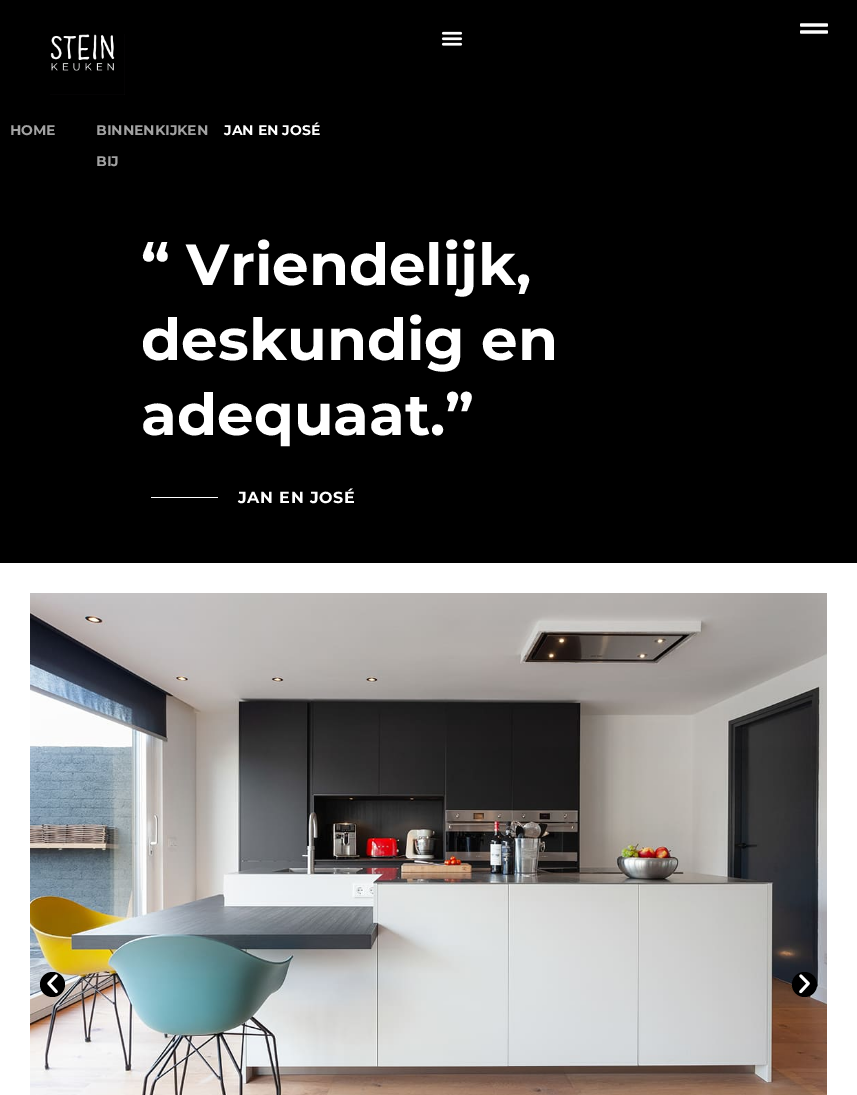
%!PS-Adobe-3.0
%%BoundingBox: 0 0 857 1095
%%LanguageLevel: 3
%%Pages: 1
%%EndComments
%%BeginProlog
/setink { dup -16 bitshift 255 div exch dup -8 bitshift 255 and 255 div exch 255 and 255 div setrgbcolor } def
/usefont { [ exch dup neg 0 0 3 -1 roll 0 0 ] selectfont } def
/disc { newpath 0 360 arc closepath } def
/drawimage { 5 dict begin { /h /w /y /x /name } { exch def } forall
  gsave x y translate w h scale
  w h 8 [w 0 0 h 0 0] name (r) file false 3 colorimage grestore end } def
%%EndProlog
%%BeginSetup
<< /PageSize [857 1095] >> setpagedevice
%%EndSetup
%%Page: 1 1
0 1095 translate 1 -1 scale
4 setmiterlimit
16#FFFFFF setink
0 0 857 1095 rectfill
16#000000 setink
0 0 857 563 rectfill
(img1.raw) 800 23 28 11 drawimage
(img2.raw) 50 34 75 61 drawimage
(img3.raw) 441 31 22 15 drawimage
/Montserrat-Bold 14 usefont
16#A2A2A2 setink
[
    [(HOME) 10 135]
    [(BINNENKIJKEN) 96 135]
    [(BIJ) 96 166]
] { aload pop moveto show } forall
16#FFFFFF setink
224 135 moveto (JAN EN JOSÉ) show
/Montserrat-Bold 58 usefont
[
    [(“ Vriendelijk,) 141 285]
    [(deskundig en) 141 360]
    [(adequaat.”) 141 435]
] { aload pop moveto show } forall
151 497 67 1 rectfill
/Montserrat-Bold 16 usefont
238 503 moveto 0.75 0 (JAN EN JOSÉ) ashow
(img4.raw) 30 593 797 502 drawimage
16#000000 setink
52.5 984.5 12.5 disc fill
(img5.raw) 47 974 11 20 drawimage
804.5 984.5 12.5 disc fill
(img6.raw) 799 974 11 20 drawimage
showpage
%%EOF
